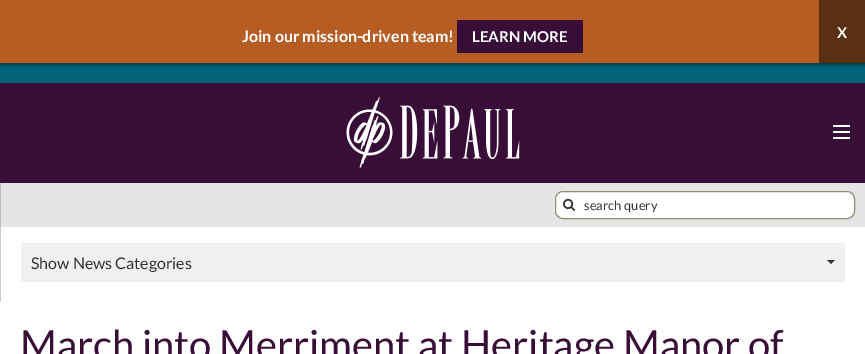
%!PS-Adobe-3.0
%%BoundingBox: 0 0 865 354
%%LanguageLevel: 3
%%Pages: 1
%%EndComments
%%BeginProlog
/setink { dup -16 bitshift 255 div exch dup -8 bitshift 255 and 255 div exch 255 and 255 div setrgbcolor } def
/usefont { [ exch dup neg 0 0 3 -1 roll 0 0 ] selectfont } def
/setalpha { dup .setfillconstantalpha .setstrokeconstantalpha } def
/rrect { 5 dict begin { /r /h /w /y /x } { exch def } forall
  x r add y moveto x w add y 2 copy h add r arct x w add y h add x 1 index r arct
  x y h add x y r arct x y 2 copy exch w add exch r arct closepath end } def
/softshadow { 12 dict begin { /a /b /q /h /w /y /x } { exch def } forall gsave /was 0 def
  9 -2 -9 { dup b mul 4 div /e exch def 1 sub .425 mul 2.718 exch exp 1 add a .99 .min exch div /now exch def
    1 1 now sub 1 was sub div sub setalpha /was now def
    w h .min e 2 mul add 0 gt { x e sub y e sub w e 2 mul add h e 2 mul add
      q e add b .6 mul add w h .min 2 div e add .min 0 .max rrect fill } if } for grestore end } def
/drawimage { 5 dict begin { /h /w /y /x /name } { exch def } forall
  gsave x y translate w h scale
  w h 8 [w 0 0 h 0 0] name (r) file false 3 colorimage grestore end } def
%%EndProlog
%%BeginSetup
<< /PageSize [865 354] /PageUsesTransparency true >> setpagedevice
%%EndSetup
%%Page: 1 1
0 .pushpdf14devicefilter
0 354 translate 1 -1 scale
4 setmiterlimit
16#FFFFFF setink
0 0 865 354 rectfill
16#006378 setink
0 63 865 20 rectfill
16#000000 setink
0 1 865 63 0 2 0.6 softshadow
16#B65D24 setink
0 0 819 63 rectfill
/Lato-Bold 16 usefont
16#FFFFFF setink
242 42 moveto (Join our mission-driven team!) show
16#380D38 setink
457 20 126 33 rectfill
/Lato-Bold 15 usefont
16#FFFFFF setink
472 42 moveto (LEARN MORE) show
16#5B2F12 setink
819 0 46 63 rectfill
16#FFFFFF setink
837 38 moveto (X) show
16#380D38 setink
0 83 865 100 rectfill
(img1.raw) 346 96 174 73 drawimage
[
    [833 131 17 2 16#FFFFFF]
    [833 125 17 2 16#FFFFFF]
    [833 137 17 2 16#FFFFFF]
    [0 183 1 119 16#CBCBCC]
] { aload pop setink rectfill } forall
0.25 setalpha
[
    [0 183 865 44 16#989898]
] { aload pop setink rectfill } forall
1 setalpha
16#FFFFFF setink
555.5 191.5 299 27 7.5 rrect gsave fill grestore
16#879075 setink
stroke
(img2.raw) 563 198 12 13 drawimage
/Lato-Regular 13 usefont
16#333333 setink
584 210 moveto (search query) show
16#F0F0F0 setink
21 243 824 39 rectfill
/Lato-Regular 16 usefont
16#333333 setink
31 269 moveto (Show News Categories) show
827 260 moveto 835 260 lineto 831 264 lineto closepath fill
/Lato-Regular 40 usefont
16#380D38 setink
20 359 moveto (March into Merriment at Heritage Manor of) show
.poppdf14devicefilter showpage
%%EOF
